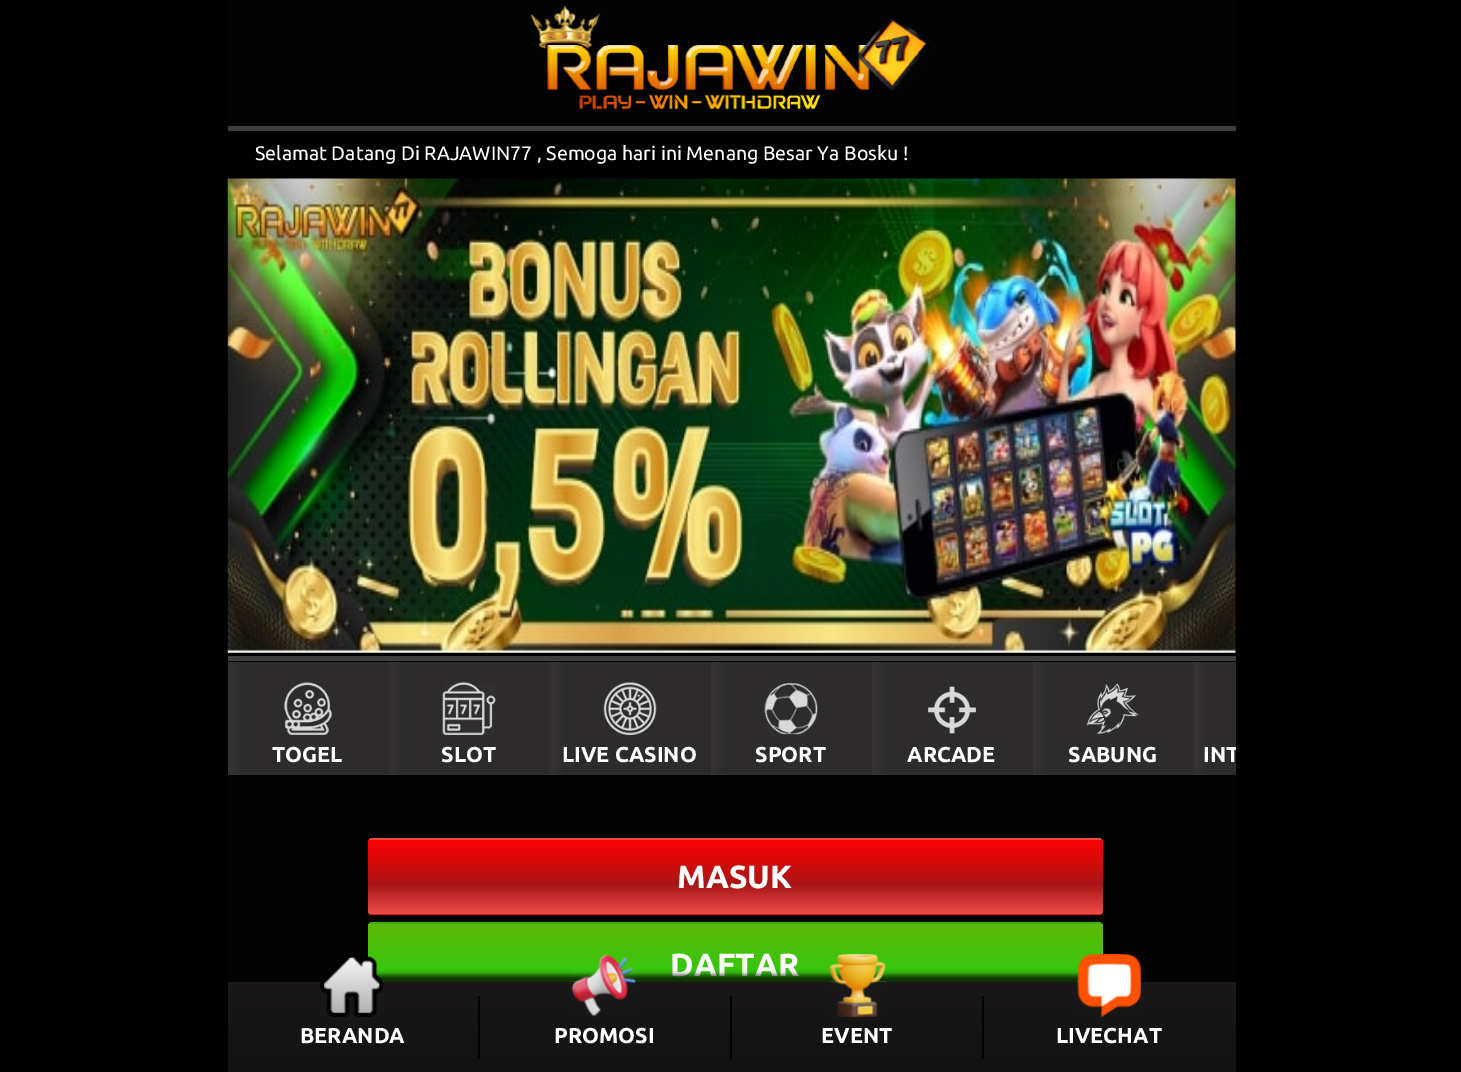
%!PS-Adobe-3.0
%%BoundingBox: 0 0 1461 1072
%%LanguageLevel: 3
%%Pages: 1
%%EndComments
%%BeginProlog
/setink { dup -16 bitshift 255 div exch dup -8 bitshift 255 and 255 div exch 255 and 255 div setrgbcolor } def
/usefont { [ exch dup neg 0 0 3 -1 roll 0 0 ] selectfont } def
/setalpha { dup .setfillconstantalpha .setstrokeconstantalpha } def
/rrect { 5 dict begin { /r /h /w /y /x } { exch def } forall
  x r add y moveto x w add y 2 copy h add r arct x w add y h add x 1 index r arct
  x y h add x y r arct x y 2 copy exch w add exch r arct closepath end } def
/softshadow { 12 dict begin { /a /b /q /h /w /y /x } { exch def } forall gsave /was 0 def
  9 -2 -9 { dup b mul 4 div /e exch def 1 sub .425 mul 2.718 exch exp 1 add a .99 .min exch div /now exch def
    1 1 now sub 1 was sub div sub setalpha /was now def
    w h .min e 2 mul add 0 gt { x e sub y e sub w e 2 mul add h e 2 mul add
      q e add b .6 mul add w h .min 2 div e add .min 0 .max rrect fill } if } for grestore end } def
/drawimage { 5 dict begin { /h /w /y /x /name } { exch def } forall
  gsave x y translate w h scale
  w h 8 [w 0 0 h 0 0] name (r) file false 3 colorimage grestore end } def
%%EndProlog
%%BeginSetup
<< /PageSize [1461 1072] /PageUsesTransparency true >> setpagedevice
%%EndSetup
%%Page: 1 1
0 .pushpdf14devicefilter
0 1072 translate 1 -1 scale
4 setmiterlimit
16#000000 setink
0 0 1461 1072 rectfill
16#030303 setink
228 0 1008 126 rectfill
(img1.raw) 530 5 403 105 drawimage
228 661 1008 321 rectfill
16#403D3D setink
228 126 1008 5 rectfill
/Ubuntu-Regular 19.6 usefont
16#FFFFFF setink
255 160 moveto (Selamat Datang Di RAJAWIN77 , Semoga hari ini Menang Besar Ya Bosku !) show
(img2.raw) 227 178 1009 475 drawimage
16#403D3D setink
228 656 1008 5 rectfill
gsave 228 662 moveto 389 662 lineto 389 775 lineto 228 775 lineto closepath clip newpath
<< /ShadingType 2 /ColorSpace /DeviceRGB /Coords [228 721 389 721] /Extend [true true] /Function << /FunctionType 3 /Domain [0 1] /Functions [<< /FunctionType 2 /Domain [0 1] /C0 [0.208 0.2 0.2] /C1 [0.176 0.169 0.169] /N 1 >> << /FunctionType 2 /Domain [0 1] /C0 [0.176 0.169 0.169] /C1 [0.176 0.169 0.169] /N 1 >>] /Bounds [0.1] /Encode [0 1 0 1] >> >> shfill grestore
(img3.raw) 284 682 48 53 drawimage
/Ubuntu-Bold 21.5 usefont
16#FFFFFF setink
272 762 moveto (TOGEL) show
gsave 389 662 moveto 550 662 lineto 550 775 lineto 389 775 lineto closepath clip newpath
<< /ShadingType 2 /ColorSpace /DeviceRGB /Coords [389 721 550 721] /Extend [true true] /Function << /FunctionType 3 /Domain [0 1] /Functions [<< /FunctionType 2 /Domain [0 1] /C0 [0.208 0.2 0.2] /C1 [0.176 0.169 0.169] /N 1 >> << /FunctionType 2 /Domain [0 1] /C0 [0.176 0.169 0.169] /C1 [0.176 0.169 0.169] /N 1 >>] /Bounds [0.1] /Encode [0 1 0 1] >> >> shfill grestore
(img4.raw) 442 682 54 53 drawimage
441 762 moveto (SLOT) show
gsave 550 662 moveto 711 662 lineto 711 775 lineto 550 775 lineto closepath clip newpath
<< /ShadingType 2 /ColorSpace /DeviceRGB /Coords [550 721 711 721] /Extend [true true] /Function << /FunctionType 3 /Domain [0 1] /Functions [<< /FunctionType 2 /Domain [0 1] /C0 [0.208 0.2 0.2] /C1 [0.176 0.169 0.169] /N 1 >> << /FunctionType 2 /Domain [0 1] /C0 [0.176 0.169 0.169] /C1 [0.176 0.169 0.169] /N 1 >>] /Bounds [0.1] /Encode [0 1 0 1] >> >> shfill grestore
(img5.raw) 603 682 54 53 drawimage
562 762 moveto (LIVE CASINO) show
gsave 711 662 moveto 872 662 lineto 872 775 lineto 711 775 lineto closepath clip newpath
<< /ShadingType 2 /ColorSpace /DeviceRGB /Coords [711 721 872 721] /Extend [true true] /Function << /FunctionType 3 /Domain [0 1] /Functions [<< /FunctionType 2 /Domain [0 1] /C0 [0.208 0.2 0.2] /C1 [0.176 0.169 0.169] /N 1 >> << /FunctionType 2 /Domain [0 1] /C0 [0.176 0.169 0.169] /C1 [0.176 0.169 0.169] /N 1 >>] /Bounds [0.1] /Encode [0 1 0 1] >> >> shfill grestore
(img6.raw) 764 683 54 52 drawimage
755 762 moveto (SPORT) show
gsave 872 662 moveto 1033 662 lineto 1033 775 lineto 872 775 lineto closepath clip newpath
<< /ShadingType 2 /ColorSpace /DeviceRGB /Coords [872 721 1033 721] /Extend [true true] /Function << /FunctionType 3 /Domain [0 1] /Functions [<< /FunctionType 2 /Domain [0 1] /C0 [0.208 0.2 0.2] /C1 [0.176 0.169 0.169] /N 1 >> << /FunctionType 2 /Domain [0 1] /C0 [0.176 0.169 0.169] /C1 [0.176 0.169 0.169] /N 1 >>] /Bounds [0.1] /Encode [0 1 0 1] >> >> shfill grestore
(img7.raw) 928 686 48 48 drawimage
907 762 moveto (ARCADE) show
gsave 1033 662 moveto 1194 662 lineto 1194 775 lineto 1033 775 lineto closepath clip newpath
<< /ShadingType 2 /ColorSpace /DeviceRGB /Coords [1033 721 1194 721] /Extend [true true] /Function << /FunctionType 3 /Domain [0 1] /Functions [<< /FunctionType 2 /Domain [0 1] /C0 [0.208 0.2 0.2] /C1 [0.176 0.169 0.169] /N 1 >> << /FunctionType 2 /Domain [0 1] /C0 [0.176 0.169 0.169] /C1 [0.176 0.169 0.169] /N 1 >>] /Bounds [0.1] /Encode [0 1 0 1] >> >> shfill grestore
(img8.raw) 1086 683 54 52 drawimage
1068 762 moveto (SABUNG) show
gsave 1194 662 moveto 1236 662 lineto 1236 775 lineto 1194 775 lineto closepath clip newpath
<< /ShadingType 2 /ColorSpace /DeviceRGB /Coords [1194 721 1355 721] /Extend [true true] /Function << /FunctionType 3 /Domain [0 1] /Functions [<< /FunctionType 2 /Domain [0 1] /C0 [0.208 0.2 0.2] /C1 [0.176 0.169 0.169] /N 1 >> << /FunctionType 2 /Domain [0 1] /C0 [0.176 0.169 0.169] /C1 [0.176 0.169 0.169] /N 1 >>] /Bounds [0.1] /Encode [0 1 0 1] >> >> shfill grestore
gsave
228 662 1008 113 rectclip
1203 762 moveto (INT) show
grestore
gsave
368 838 735 77 5 rrect clip newpath
gsave 368 838 moveto 1103 838 lineto 1103 840 lineto 368 840 lineto closepath clip newpath
<< /ShadingType 2 /ColorSpace /DeviceRGB /Coords [735 767 735 840] /Extend [true true] /Function << /FunctionType 3 /Domain [0 1] /Functions [<< /FunctionType 2 /Domain [0 1] /C0 [1 0 0] /C1 [0.663 0.086 0.086] /N 1 >> << /FunctionType 2 /Domain [0 1] /C0 [0.663 0.086 0.086] /C1 [0.925 0.302 0.286] /N 1 >>] /Bounds [0.6] /Encode [0 1 0 1] >> >> shfill grestore
gsave 368 840 moveto 1103 840 lineto 1103 914 lineto 368 914 lineto closepath clip newpath
<< /ShadingType 2 /ColorSpace /DeviceRGB /Coords [735 840 735 914] /Extend [true true] /Function << /FunctionType 3 /Domain [0 1] /Functions [<< /FunctionType 2 /Domain [0 1] /C0 [1 0 0] /C1 [0.663 0.086 0.086] /N 1 >> << /FunctionType 2 /Domain [0 1] /C0 [0.663 0.086 0.086] /C1 [0.925 0.302 0.286] /N 1 >>] /Bounds [0.6] /Encode [0 1 0 1] >> >> shfill grestore
gsave 368 914 moveto 1103 914 lineto 1103 915 lineto 368 915 lineto closepath clip newpath
<< /ShadingType 2 /ColorSpace /DeviceRGB /Coords [735 914 735 987] /Extend [true true] /Function << /FunctionType 3 /Domain [0 1] /Functions [<< /FunctionType 2 /Domain [0 1] /C0 [1 0 0] /C1 [0.663 0.086 0.086] /N 1 >> << /FunctionType 2 /Domain [0 1] /C0 [0.663 0.086 0.086] /C1 [0.925 0.302 0.286] /N 1 >>] /Bounds [0.6] /Encode [0 1 0 1] >> >> shfill grestore
grestore
/Ubuntu-Bold 32 usefont
677 888 moveto (MASUK) show
gsave
368 922 735 84 5 rrect clip newpath
gsave 368 922 moveto 1103 922 lineto 1103 924 lineto 368 924 lineto closepath clip newpath
<< /ShadingType 2 /ColorSpace /DeviceRGB /Coords [735 844 735 924] /Extend [true true] /Function << /FunctionType 3 /Domain [0 1] /Functions [<< /FunctionType 2 /Domain [0 1] /C0 [0.361 0.725 0.016] /C1 [0.212 0.78 0.059] /N 1 >> << /FunctionType 2 /Domain [0 1] /C0 [0.212 0.78 0.059] /C1 [0.22 0.706 0.031] /N 1 >>] /Bounds [0.6] /Encode [0 1 0 1] >> >> shfill grestore
gsave 368 924 moveto 1103 924 lineto 1103 982 lineto 368 982 lineto closepath clip newpath
<< /ShadingType 2 /ColorSpace /DeviceRGB /Coords [735 924 735 1005] /Extend [true true] /Function << /FunctionType 3 /Domain [0 1] /Functions [<< /FunctionType 2 /Domain [0 1] /C0 [0.361 0.725 0.016] /C1 [0.212 0.78 0.059] /N 1 >> << /FunctionType 2 /Domain [0 1] /C0 [0.212 0.78 0.059] /C1 [0.22 0.706 0.031] /N 1 >>] /Bounds [0.6] /Encode [0 1 0 1] >> >> shfill grestore
grestore
670 976 moveto (DAFTAR) show
16#000000 setink
228 975 1008 91 0 2.5 0.75 softshadow
gsave 228 982 moveto 1236 982 lineto 1236 1072 lineto 228 1072 lineto closepath clip newpath
<< /ShadingType 2 /ColorSpace /DeviceRGB /Coords [732 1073 732 982] /Extend [true true] /Function << /FunctionType 2 /Domain [0 1] /C0 [0.075 0.071 0.071] /C1 [0.102 0.094 0.094] /N 1 >> >> shfill grestore
(img9.raw) 320 956 64 61 drawimage
/Ubuntu-Bold 21.5 usefont
16#FFFFFF setink
300 1043 moveto (BERANDA) show
16#000000 setink
478 996 2 63 rectfill
(img10.raw) 572 954 64 63 drawimage
16#FFFFFF setink
554 1043 moveto (PROMOSI) show
16#000000 setink
730 996 2 63 rectfill
(img11.raw) 829 954 57 63 drawimage
16#FFFFFF setink
821 1043 moveto (EVENT) show
16#000000 setink
982 996 2 63 rectfill
(img12.raw) 1077 954 64 63 drawimage
16#FFFFFF setink
1056 1043 moveto (LIVECHAT) show
.poppdf14devicefilter showpage
%%EOF
